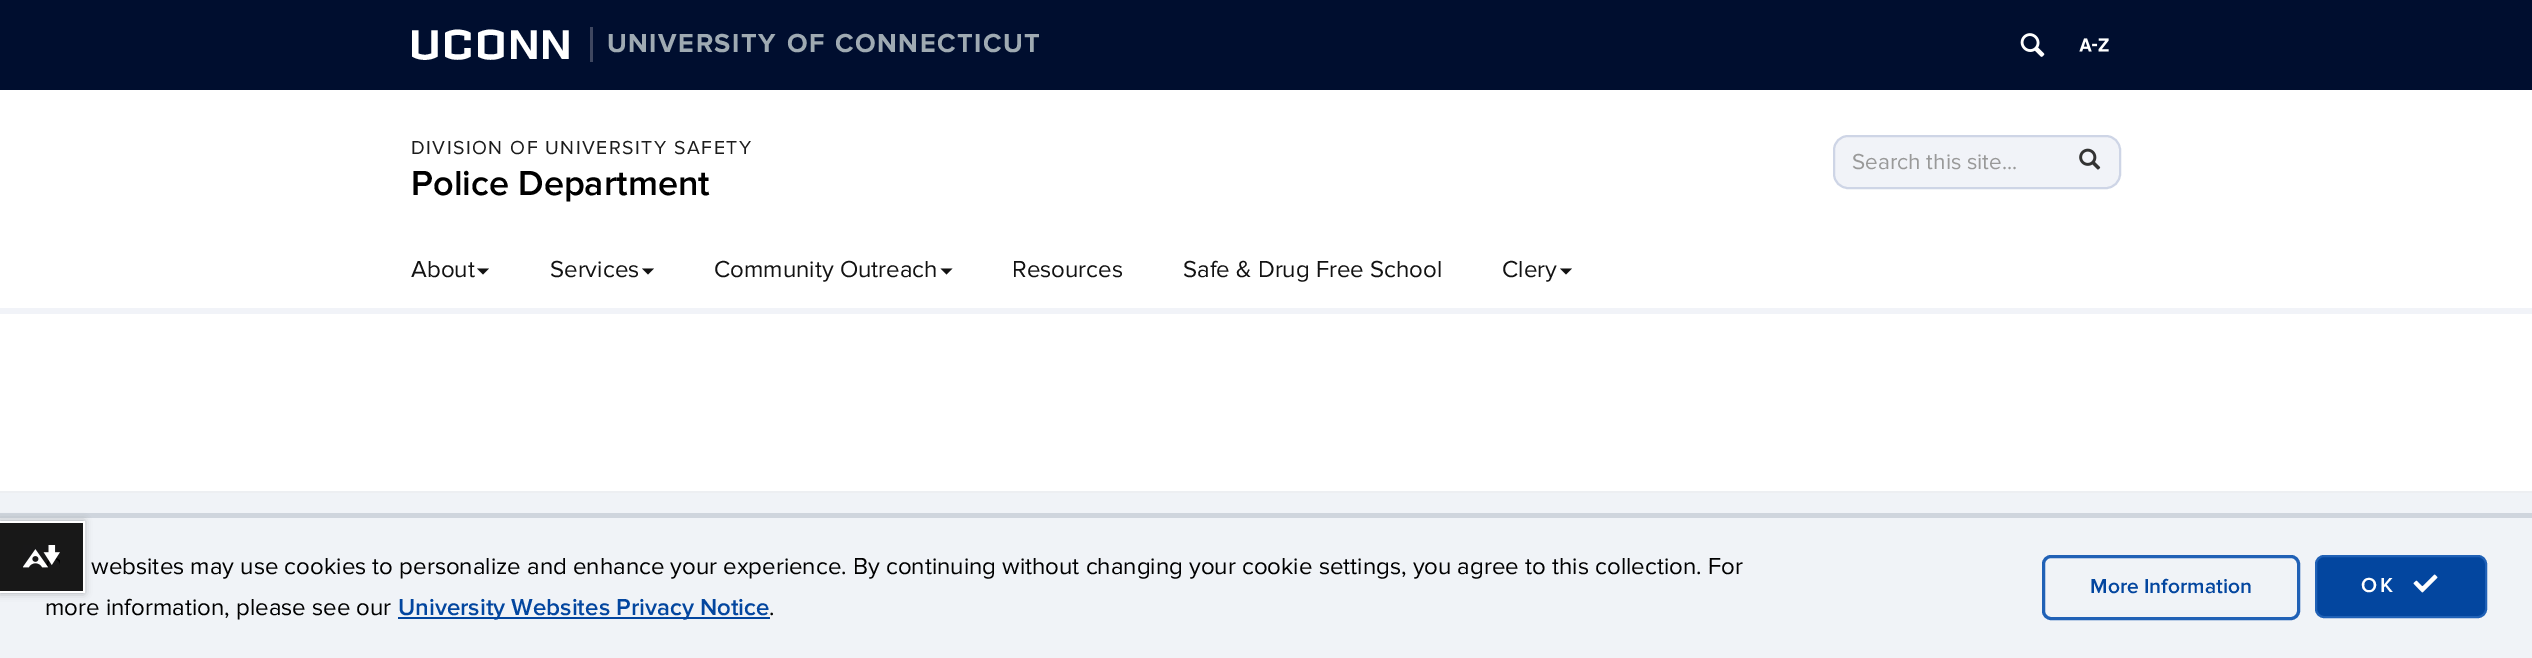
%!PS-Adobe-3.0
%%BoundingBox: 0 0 2532 658
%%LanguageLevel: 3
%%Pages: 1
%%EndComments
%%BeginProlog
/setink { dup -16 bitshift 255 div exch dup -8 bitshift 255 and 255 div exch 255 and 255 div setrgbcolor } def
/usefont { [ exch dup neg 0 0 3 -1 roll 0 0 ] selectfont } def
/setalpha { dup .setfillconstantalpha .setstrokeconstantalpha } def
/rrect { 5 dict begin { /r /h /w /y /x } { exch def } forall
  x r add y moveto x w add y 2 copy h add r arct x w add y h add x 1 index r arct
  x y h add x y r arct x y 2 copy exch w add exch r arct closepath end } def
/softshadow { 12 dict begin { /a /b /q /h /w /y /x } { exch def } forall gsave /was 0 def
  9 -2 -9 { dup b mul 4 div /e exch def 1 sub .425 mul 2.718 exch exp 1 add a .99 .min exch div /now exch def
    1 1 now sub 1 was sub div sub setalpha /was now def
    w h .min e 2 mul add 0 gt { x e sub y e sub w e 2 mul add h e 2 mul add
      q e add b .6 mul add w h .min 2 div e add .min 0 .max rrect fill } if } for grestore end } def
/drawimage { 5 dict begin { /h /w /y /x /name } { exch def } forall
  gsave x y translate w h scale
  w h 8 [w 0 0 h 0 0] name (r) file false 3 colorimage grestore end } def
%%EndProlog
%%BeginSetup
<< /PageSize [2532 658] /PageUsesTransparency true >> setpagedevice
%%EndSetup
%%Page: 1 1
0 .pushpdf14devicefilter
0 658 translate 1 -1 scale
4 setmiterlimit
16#FFFFFF setink
0 0 2532 658 rectfill
16#000E2F setink
0 0 2532 90 rectfill
/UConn-Regular 48 usefont
16#FFFFFF setink
412 59 moveto 4.5 0 (UCONN) ashow
/ProximaNova-Bold 27 usefont
16#9FAAB2 setink
607 52 moveto 1 0 32 1.5 0 (UNIVERSITY OF CONNECTICUT) awidthshow
16#3F4760 setink
590 27 3 35 rectfill
(img1.raw) 2020 33 25 24 drawimage
(img2.raw) 2079 38 30 14 drawimage
/ProximaNova-Regular 19.5 usefont
16#1C1C1C setink
411 154 moveto 1.5 0 (DIVISION OF UNIVERSITY SAFETY) ashow
/ProximaNova-SemiBold 36 usefont
16#000000 setink
411 195 moveto (Police Department) show
16#F1F3F8 setink
1834 136 286 52 14 rrect gsave fill grestore
16#CED5E6 setink
2 setlinewidth
stroke
/ProximaNova-Regular 22.5 usefont
16#999999 setink
1852 169 moveto (Search this site...) show
(img3.raw) 2079 148 22 22 drawimage
/ProximaNova-Regular 24 usefont
16#121212 setink
411 277 moveto (About) show
477 268.5 moveto 489 268.5 lineto 483 274.5 lineto closepath fill
550 277 moveto (Services) show
642 268.5 moveto 654 268.5 lineto 648 274.5 lineto closepath fill
714 277 moveto (Community Outreach) show
940.5 268.5 moveto 952.5 268.5 lineto 946.5 274.5 lineto closepath fill
[
    [(Resources) 1012 277]
    [(Safe & Drug Free School) 1183 277]
    [(Clery) 1502 277]
] { aload pop moveto show } forall
1560 268.5 moveto 1572 268.5 lineto 1566 274.5 lineto closepath fill
[
    [0 308 2532 6 16#F1F3F8]
    [0 493 2532 20 16#F0F3F7]
    [0 491 2532 2 16#EDEFF2]
    [0 518 2532 140 16#F0F3F7]
    [0 513 2532 5 16#CFD5DD]
] { aload pop setink rectfill } forall
gsave
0 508 moveto 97 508 lineto 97 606 lineto 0 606 lineto closepath 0 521 moveto 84 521 lineto 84 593 lineto 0 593 lineto closepath eoclip newpath
16#000000 setink
0 521 84 72 0 4 0.3 softshadow
grestore
0.9 setalpha
[
    [0 523 83 68 16#000000]
] { aload pop setink rectfill } forall
1 setalpha
[
    [0 521 84 2 16#FFFFFF]
    [83 521 2 72 16#FFFFFF]
    [0 591 84 2 16#FFFFFF]
] { aload pop setink rectfill } forall
(img4.raw) 23 545 37 23 drawimage
16#000000 setink
91 574 moveto (websites may use cookies to personalize and enhance your experience. By continuing without changing your cookie settings, you agree to this collection. For) show
45 615 moveto (more information, please see our) show
16#03469F setink
398 617 372 2 rectfill
/ProximaNova-SemiBold 24 usefont
398 615 moveto (University Websites Privacy Notice) show
/ProximaNova-Regular 24 usefont
16#000000 setink
769 615 moveto (.) show
16#2061B6 setink
3 setlinewidth
2043.5 556.5 255 62 7.5 rrect stroke
/ProximaNova-SemiBold 21 usefont
16#03469F setink
2090 593 moveto (More Information) show
2316 556 170 61 8 rrect gsave fill grestore
16#2061B6 setink
2 setlinewidth
stroke
16#FFFFFF setink
2361 592 moveto 3 0 (OK) ashow
(img5.raw) 2413 574 25 19 drawimage
.poppdf14devicefilter showpage
%%EOF
